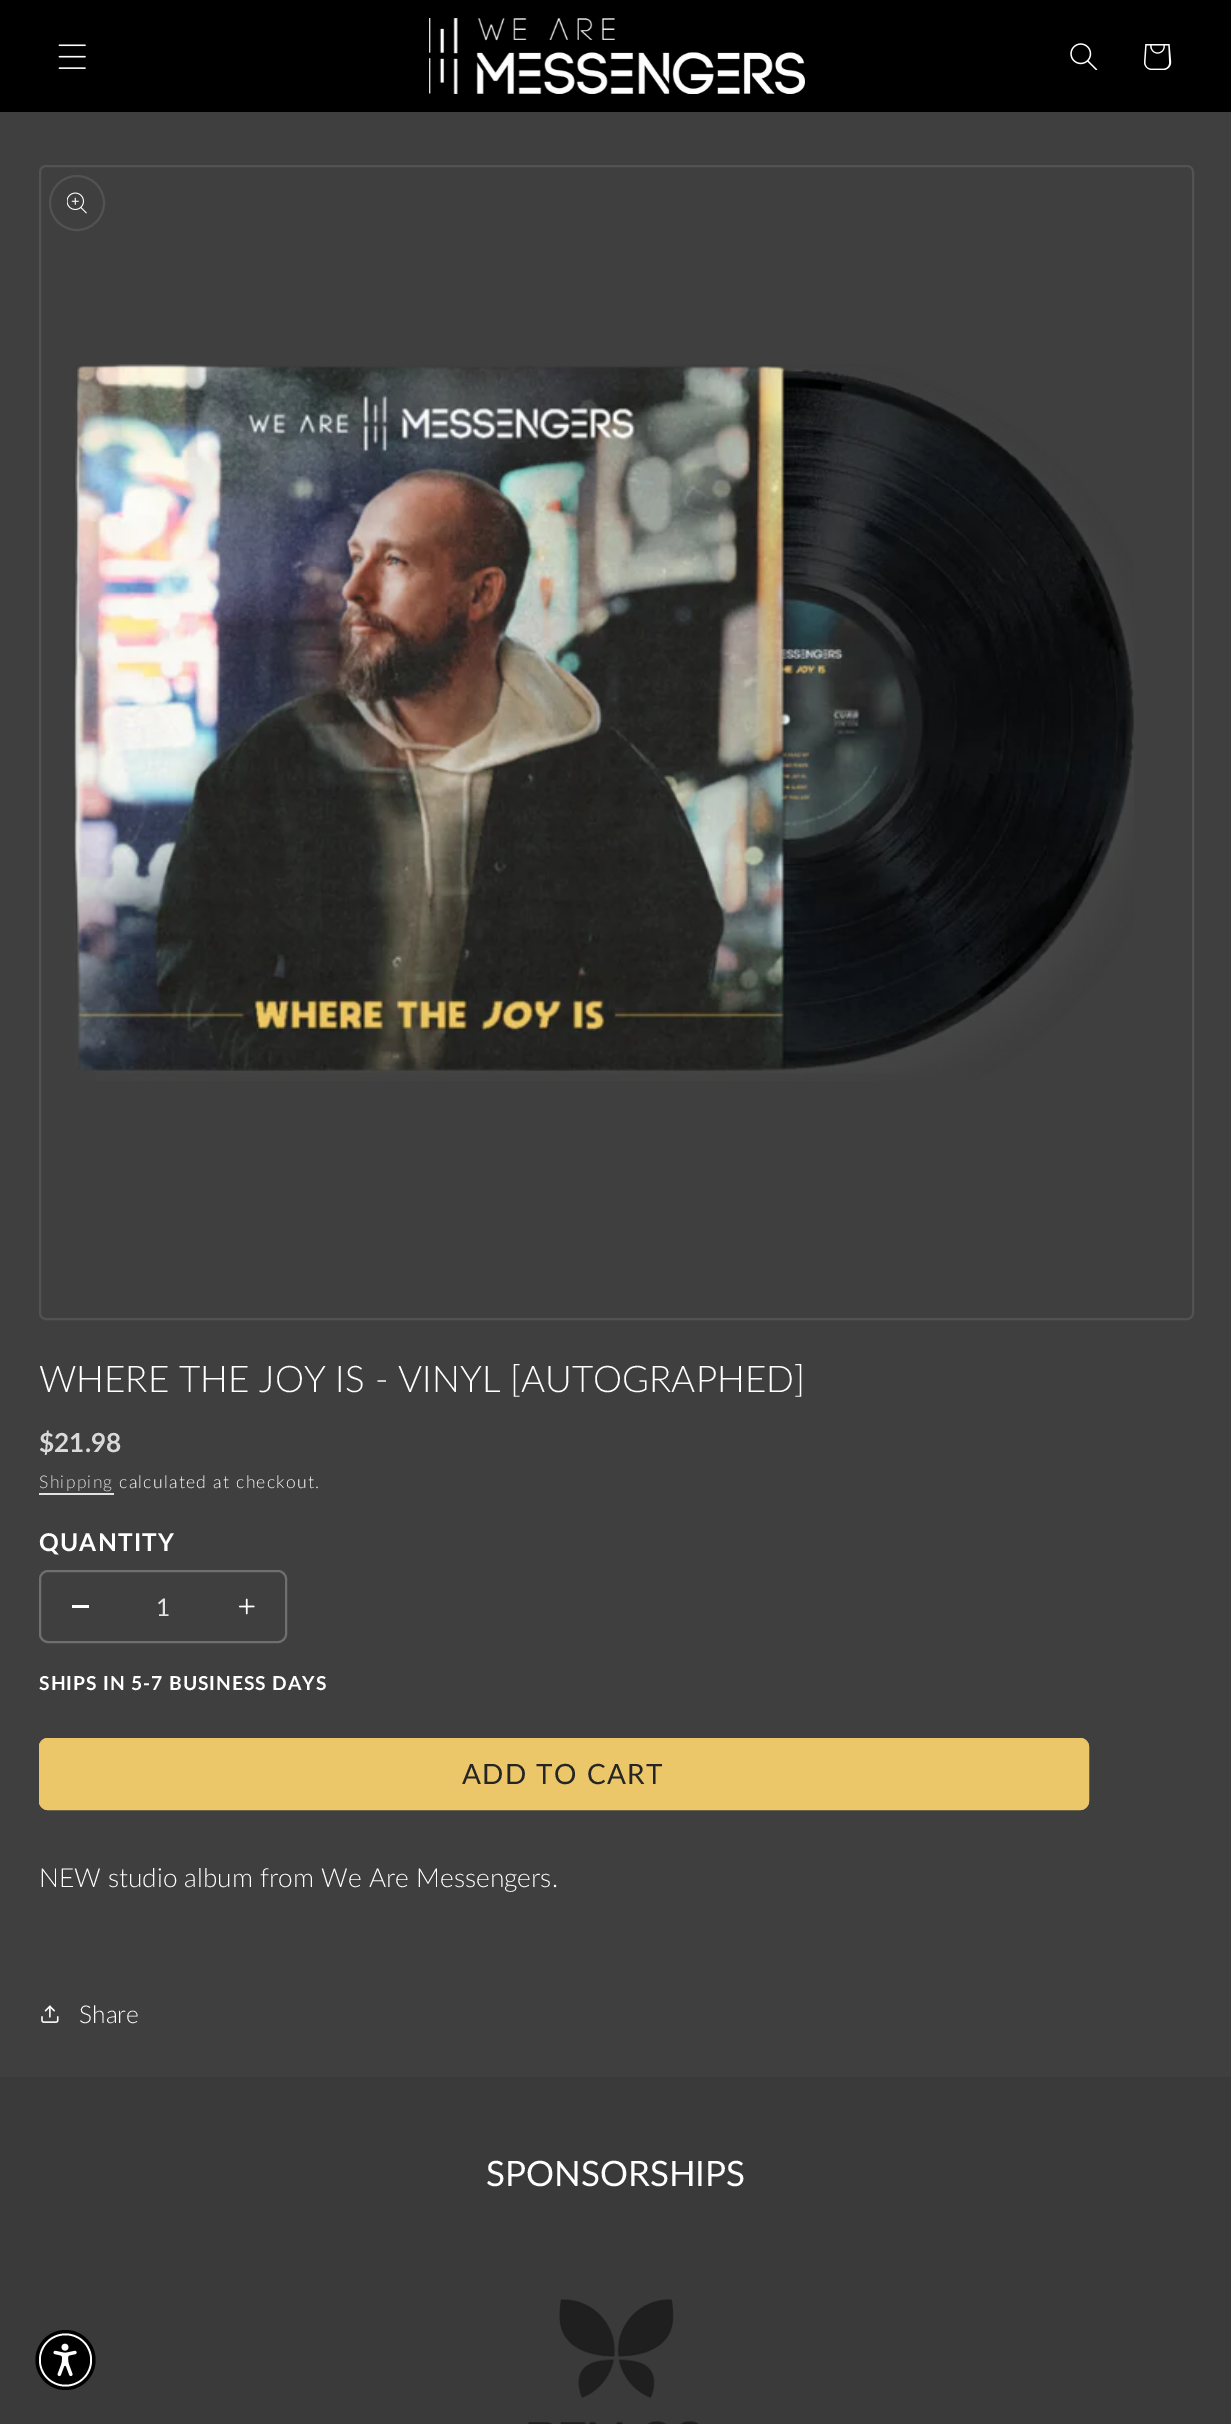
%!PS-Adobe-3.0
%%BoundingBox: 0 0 1231 2424
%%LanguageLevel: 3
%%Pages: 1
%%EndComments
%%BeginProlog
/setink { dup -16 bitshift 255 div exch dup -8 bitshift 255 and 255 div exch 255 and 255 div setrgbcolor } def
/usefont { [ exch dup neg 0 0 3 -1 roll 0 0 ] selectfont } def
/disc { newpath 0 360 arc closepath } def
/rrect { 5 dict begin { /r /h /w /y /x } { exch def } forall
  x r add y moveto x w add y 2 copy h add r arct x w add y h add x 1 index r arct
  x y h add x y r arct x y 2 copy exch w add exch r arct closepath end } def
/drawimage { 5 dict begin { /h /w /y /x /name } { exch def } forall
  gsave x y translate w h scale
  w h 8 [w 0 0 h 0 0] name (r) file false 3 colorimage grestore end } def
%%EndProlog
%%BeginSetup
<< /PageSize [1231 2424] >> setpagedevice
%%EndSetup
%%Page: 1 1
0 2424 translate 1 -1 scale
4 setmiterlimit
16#3F3F3F setink
0 0 1231 2424 rectfill
16#000000 setink
0 0 1231 112 rectfill
(img1.raw) 58 44 28 25 drawimage
(img2.raw) 429 18 376 76 drawimage
(img3.raw) 1070 43 28 27 drawimage
(img4.raw) 1144 44 28 26 drawimage
16#525252 setink
2 setlinewidth
40 166 1153 1153 6 rrect stroke
77 203 27 disc stroke
(img5.raw) 67 192 20 22 drawimage
(img6.raw) 73 364 1061 717 drawimage
(img7.raw) 74 364 1060 709 drawimage
/Lato-Light 36.75 usefont
16#FFFFFF setink
39 1392 moveto (WHERE THE JOY IS - VINYL [AUTOGRAPHED]) show
/Lato-Bold 26.25 usefont
16#D9D9D9 setink
39 1452 moveto ($21.98) show
/Lato-Light 17.5 usefont
16#E2E2E2 setink
39 1488 moveto 1.25 0 (Shipping) ashow
39 1493 75 2 rectfill
16#FFFFFF setink
119 1488 moveto 1.25 0 (calculated at checkout.) ashow
/Lato-Bold 24.5 usefont
39 1551 moveto 1.25 0 (QUANTITY) ashow
72 1605 17 3 rectfill
(img8.raw) 238 1598 17 17 drawimage
16#6F6F6F setink
40 1571 246 71 8 rrect stroke
/Lato-Regular 24.5 usefont
16#E2E2E2 setink
156 1616 moveto (1) show
/Lato-Bold 19.25 usefont
16#FFFFFF setink
39 1690 moveto 0.95 0 (SHIPS IN 5-7 BUSINESS DAYS) ashow
16#ECC769 setink
39 1738 1050 72 9 rrect fill
40 1739 1048 70 8 rrect stroke
/Lato-Regular 28 usefont
16#252525 setink
462 1784 moveto 1.4 0 (ADD TO CART) ashow
/Lato-Light 26.25 usefont
16#FFFFFF setink
39 1887 moveto (NEW studio album from We Are Messengers.) show
(img9.raw) 41 2005 18 18 drawimage
/Lato-Light 24.5 usefont
79 2023 moveto (Share) show
16#3A3A3A setink
0 2077 1231 347 rectfill
/Lato-Regular 35 usefont
16#FFFFFF setink
486 2186 moveto (SPONSORSHIPS) show
(img10.raw) 528 2299 170 125 drawimage
16#000000 setink
65.5 2360 30 disc fill
16#FFFFFF setink
65.5 2360 26.5 disc fill
16#000000 setink
65.5 2360 24.5 disc fill
(img11.raw) 53 2343 24 34 drawimage
showpage
%%EOF
